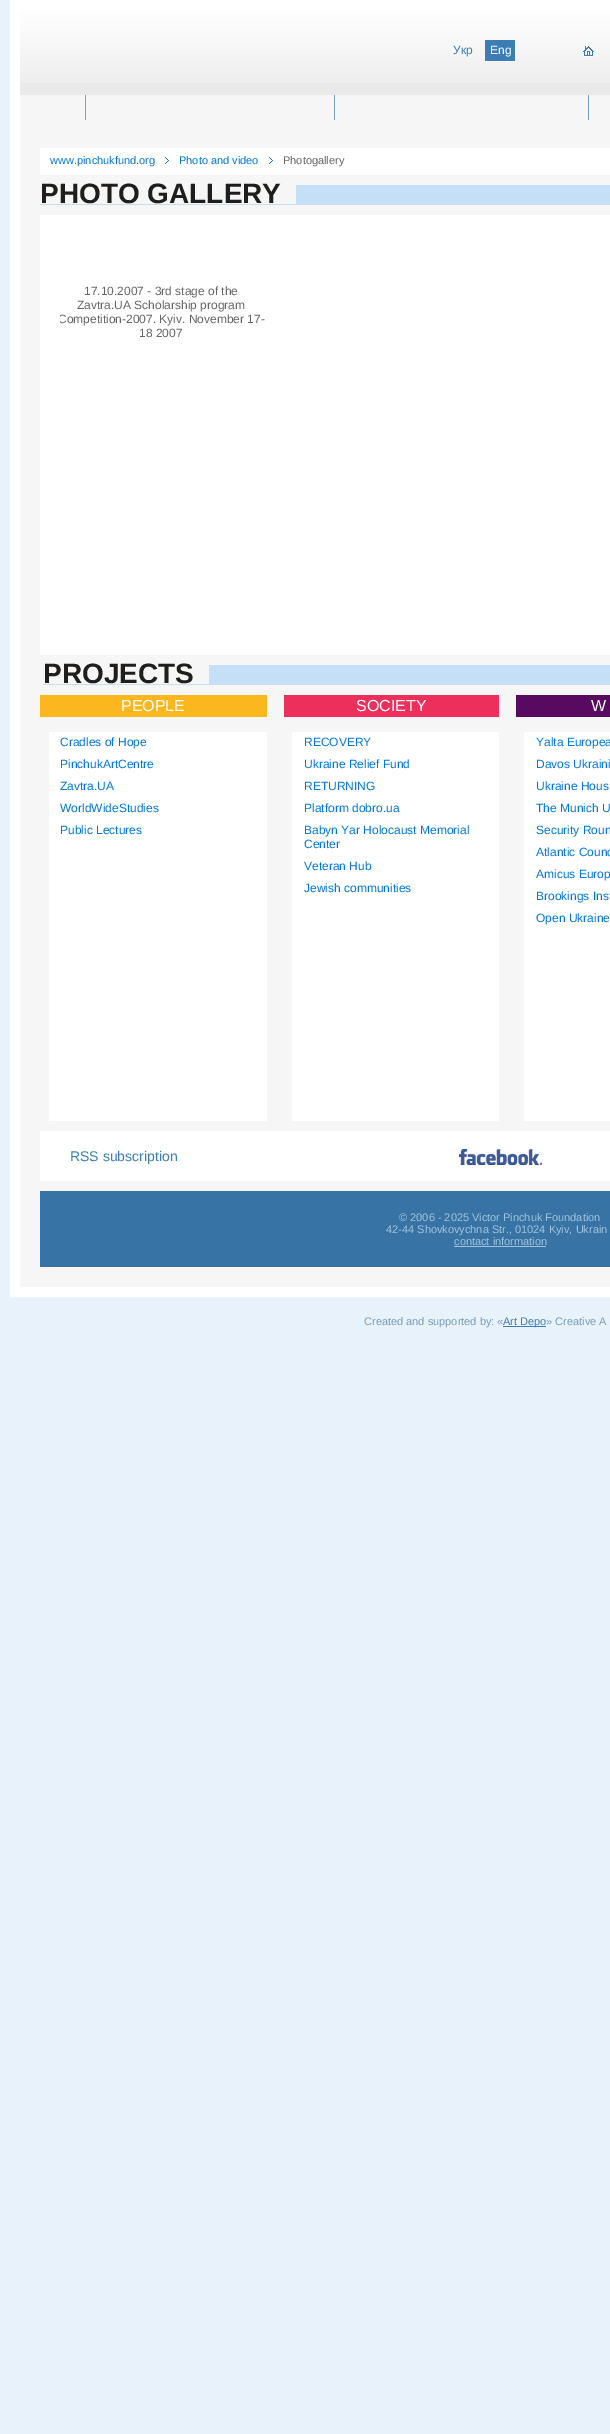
%!PS-Adobe-3.0
%%BoundingBox: 0 0 610 2434
%%LanguageLevel: 3
%%Pages: 1
%%EndComments
%%BeginProlog
/setink { dup -16 bitshift 255 div exch dup -8 bitshift 255 and 255 div exch 255 and 255 div setrgbcolor } def
/usefont { [ exch dup neg 0 0 3 -1 roll 0 0 ] selectfont } def
/drawimage { 5 dict begin { /h /w /y /x /name } { exch def } forall
  gsave x y translate w h scale
  w h 8 [w 0 0 h 0 0] name (r) file false 3 colorimage grestore end } def
%%EndProlog
%%BeginSetup
<< /PageSize [610 2434] >> setpagedevice
%%EndSetup
%%Page: 1 1
0 2434 translate 1 -1 scale
4 setmiterlimit
16#E7F2FB setink
0 0 610 2434 rectfill
16#F6F6F6 setink
20 95 590 1192 rectfill
16#FFFFFF setink
10 setlinewidth
15 5 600 1287 rectstroke
16#E9E9E9 setink
20 83 590 12 rectfill
(img1.raw) 20 10 590 73 drawimage
/LiberationSans-Regular 12 usefont
16#3C7EB3 setink
453 54 moveto (Укр) show
485 40 30 21 rectfill
16#FFFFFF setink
485 61 30 1 rectfill
490 54 moveto (Eng) show
(img2.raw) 583 46 11 11 drawimage
(img3.raw) 85 95 1 25 drawimage
(img3.raw) 334 95 1 25 drawimage
(img3.raw) 588 95 1 25 drawimage
40 148 570 27 rectfill
/LiberationSans-Regular 11 usefont
16#0077DB setink
50 164 moveto (www.pinchukfund.org) show
(img4.raw) 165 157 4 7 drawimage
179 164 moveto (Photo and video) show
(img4.raw) 269 157 4 7 drawimage
16#666666 setink
283 164 moveto (Photogallery) show
[
    [40 215 570 440 16#FFFFFF]
    [40 185 570 20 16#C5E0F6]
    [40 185 256 19 16#F6F6F6]
] { aload pop setink rectfill } forall
/LiberationSans-Bold 28 usefont
16#1F1E1C setink
40 203 moveto (PHOTO GALLERY) show
/LiberationSans-Regular 12 usefont
16#666666 setink
84 295 moveto (17.10.2007 - 3rd stage of the) show
77 309 moveto (Zavtra.UA Scholarship program) show
gsave
60 235 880 105 rectclip
58 323 moveto (Competition-2007. Kyiv. November 17-) show
grestore
139 337 moveto (18 2007) show
16#C5E0F6 setink
43 665 567 20 rectfill
16#F6F6F6 setink
43 665 166 19 rectfill
/LiberationSans-Bold 28 usefont
16#1F1E1C setink
43 683 moveto (PROJECTS) show
16#FCB71E setink
40 695 227 22 rectfill
/LiberationSans-Regular 16 usefont
16#FFFFFF setink
121 711 moveto (PEOPLE) show
16#ED2F5C setink
284 695 215 22 rectfill
16#FFFFFF setink
356 711 moveto (SOCIETY) show
16#570A60 setink
516 695 94 22 rectfill
16#FFFFFF setink
591 711 moveto (W) show
49 732 218 389 rectfill
/LiberationSans-Regular 12 usefont
16#0077DB setink
[
    [(Cradles of Hope) 60 746]
    [(PinchukArtCentre) 60 768]
    [(Zavtra.UA) 60 790]
    [(WorldWideStudies) 60 812]
    [(Public Lectures) 60 834]
] { aload pop moveto show } forall
16#FFFFFF setink
292 732 207 389 rectfill
16#0077DB setink
[
    [(RECOVERY) 304 746]
    [(Ukraine Relief Fund) 304 768]
    [(RETURNING) 304 790]
    [(Platform dobro.ua) 304 812]
    [(Babyn Yar Holocaust Memorial) 304 834]
    [(Center) 304 848]
    [(Veteran Hub) 304 870]
    [(Jewish communities) 304 892]
] { aload pop moveto show } forall
16#FFFFFF setink
524 732 86 389 rectfill
16#0077DB setink
[
    [(Yalta Europea) 536 746]
    [(Davos Ukraini) 536 768]
    [(Ukraine Hous) 536 790]
    [(The Munich U) 536 812]
    [(Security Roun) 536 834]
    [(Atlantic Counc) 536 856]
    [(Amicus Europ) 536 878]
    [(Brookings Inst) 536 900]
    [(Open Ukraine) 536 922]
] { aload pop moveto show } forall
16#FFFFFF setink
40 1131 570 50 rectfill
/LiberationSans-Regular 14 usefont
16#3C7EB3 setink
70 1161 moveto (RSS subscription) show
(img5.raw) 459 1149 83 16 drawimage
16#3774A5 setink
40 1191 570 76 rectfill
/LiberationSans-Regular 11 usefont
16#A1C2DB setink
[
    [(© 2006 - 2025 Victor Pinchuk Foundation) 399 1221]
    [(42-44 Shovkovychna Str., 01024 Kyiv, Ukrain) 386 1233]
    [(contact information) 454 1245]
] { aload pop moveto show } forall
454 1246 92 1 rectfill
16#7B9CB8 setink
364 1325 moveto (Created and supported by: «) show
16#3C7EB3 setink
503 1326 43 1 rectfill
503 1325 moveto (Art Depo) show
16#7B9CB8 setink
546 1325 moveto (» Creative A) show
showpage
%%EOF
